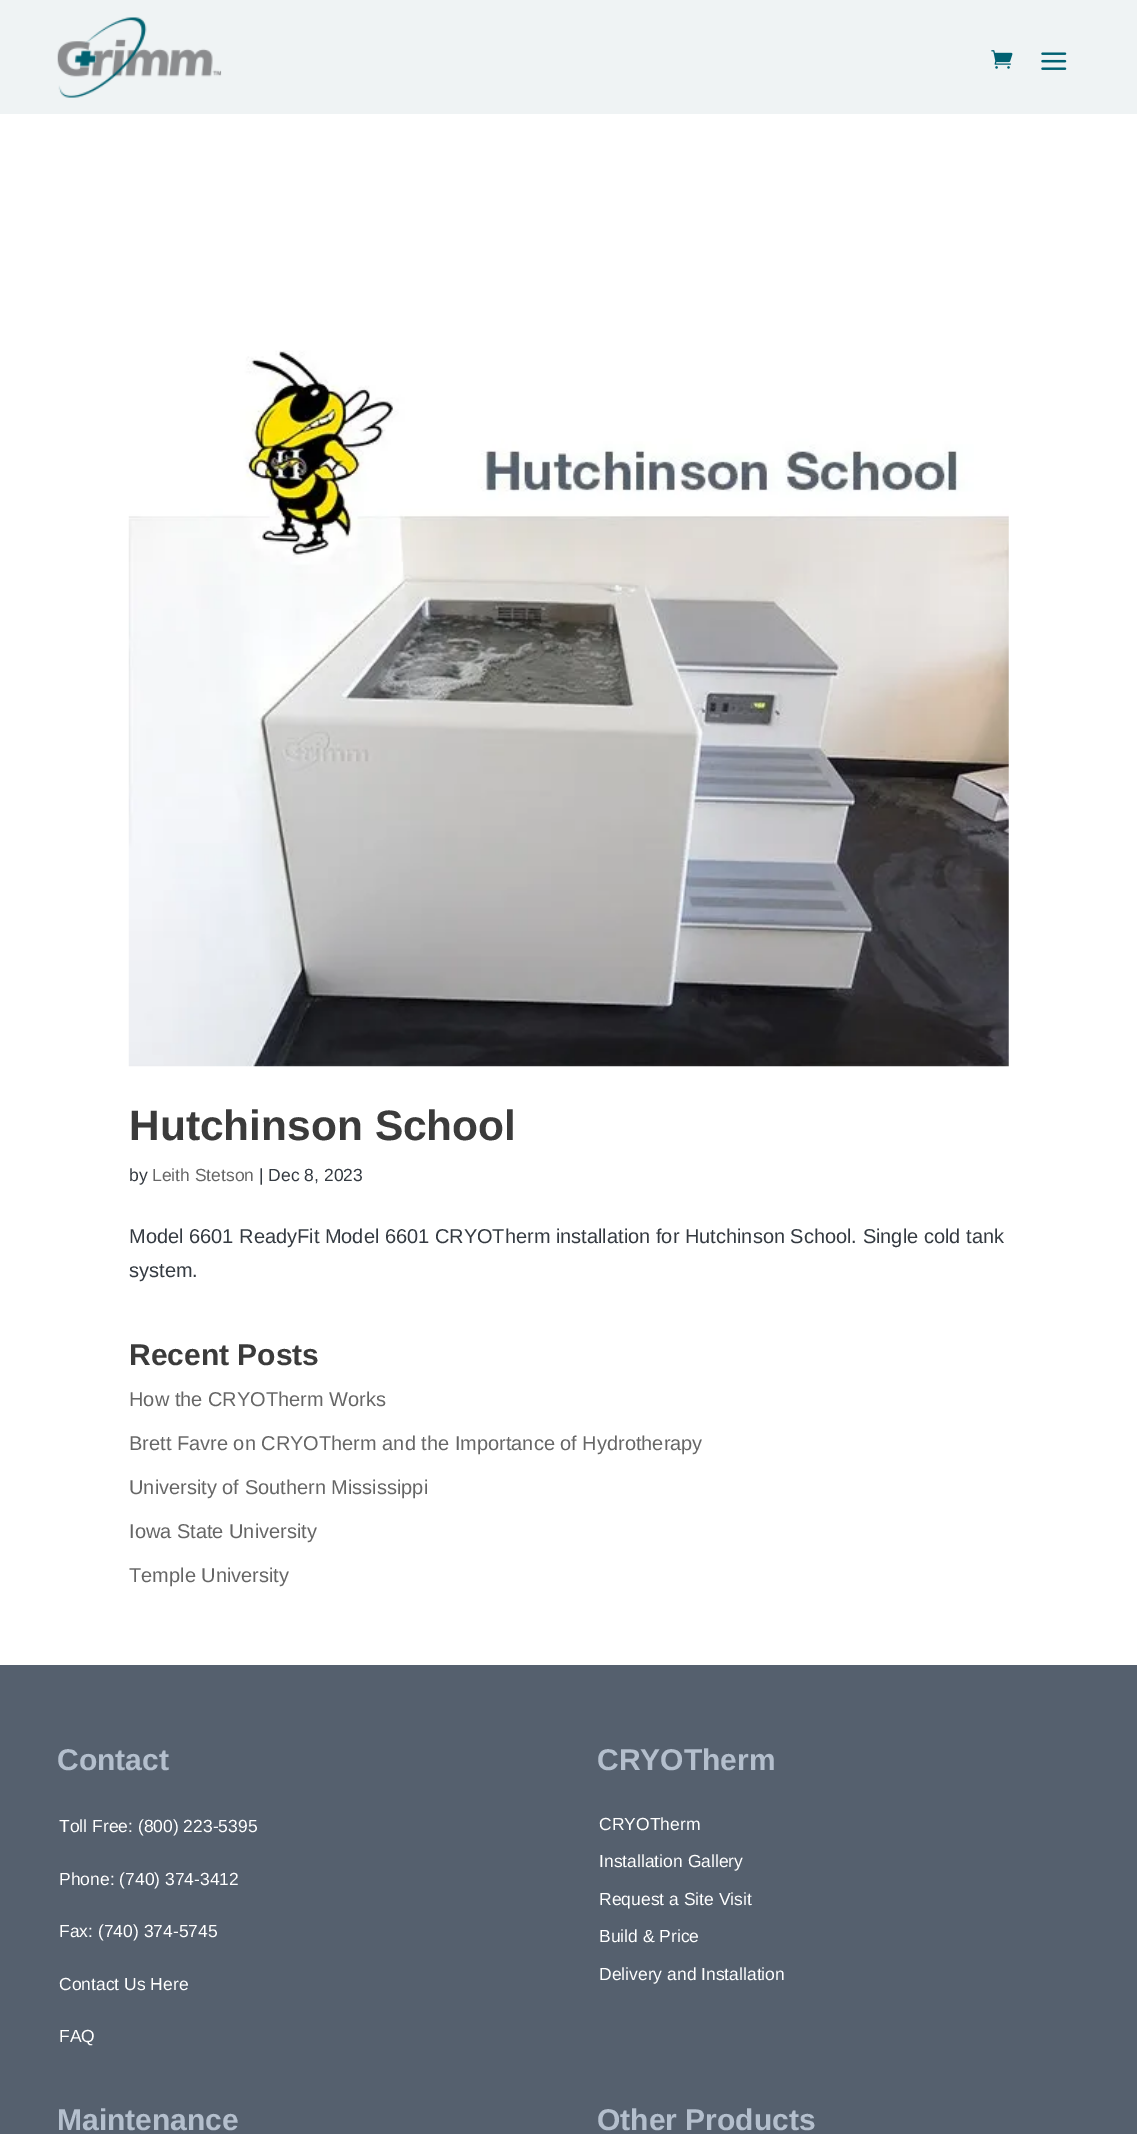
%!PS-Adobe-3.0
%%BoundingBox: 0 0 1137 2134
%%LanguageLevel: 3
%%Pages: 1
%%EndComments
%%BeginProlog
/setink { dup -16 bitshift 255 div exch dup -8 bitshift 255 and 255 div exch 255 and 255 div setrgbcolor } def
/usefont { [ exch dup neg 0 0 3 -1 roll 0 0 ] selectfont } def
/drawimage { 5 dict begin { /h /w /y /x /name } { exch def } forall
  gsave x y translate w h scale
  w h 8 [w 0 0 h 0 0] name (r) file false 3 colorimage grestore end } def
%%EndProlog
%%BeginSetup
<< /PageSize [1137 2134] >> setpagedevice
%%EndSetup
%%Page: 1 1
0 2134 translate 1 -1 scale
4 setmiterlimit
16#FFFFFF setink
0 0 1137 2134 rectfill
16#EFF3F4 setink
0 0 1137 114 rectfill
(img1.raw) 57 17 165 81 drawimage
(img2.raw) 991 50 22 19 drawimage
(img3.raw) 1041 52 26 18 drawimage
(img4.raw) 128 350 881 717 drawimage
/LiberationSans-Bold 42.5 usefont
16#3B3B3B setink
129 1140 moveto (Hutchinson School) show
/LiberationSans-Regular 17.5 usefont
16#343A41 setink
129 1181 moveto (by) show
16#666666 setink
152 1181 moveto (Leith Stetson) show
16#343A41 setink
259 1181 moveto (| Dec 8, 2023) show
/LiberationSans-Regular 20 usefont
129 1243 moveto (Model 6601 ReadyFit Model 6601 CRYOTherm installation for Hutchinson School. Single cold tank) show
129 1277 moveto (system.) show
/LiberationSans-Bold 30 usefont
16#3B3B3B setink
129 1365 moveto (Recent Posts) show
/LiberationSans-Regular 20 usefont
16#666666 setink
[
    [(How the CRYOTherm Works) 129 1406]
    [(Brett Favre on CRYOTherm and the Importance of Hydrotherapy) 129 1450]
    [(University of Southern Mississippi) 129 1494]
    [(Iowa State University) 129 1538]
    [(Temple University) 129 1582]
] { aload pop moveto show } forall
16#55606E setink
0 1665 1137 469 rectfill
/LiberationSans-Bold 30 usefont
16#B4BFCD setink
57 1770 moveto (Contact) show
/LiberationSans-Regular 17.5 usefont
16#FFFFFF setink
[
    [(Toll Free: \(800\) 223-5395) 59 1832]
    [(Phone: \(740\) 374-3412) 59 1885]
    [(Fax: \(740\) 374-5745) 59 1937]
    [(Contact Us Here) 59 1990]
    [(FAQ) 59 2042]
] { aload pop moveto show } forall
/LiberationSans-Bold 30 usefont
16#B4BFCD setink
597 1770 moveto (CRYOTherm) show
/LiberationSans-Regular 17.5 usefont
16#FFFFFF setink
[
    [(CRYOTherm) 599 1830]
    [(Installation Gallery) 599 1867]
    [(Request a Site Visit) 599 1905]
    [(Build & Price) 599 1942]
    [(Delivery and Installation) 599 1980]
] { aload pop moveto show } forall
/LiberationSans-Bold 30 usefont
16#B4BFCD setink
57 2130 moveto (Maintenance) show
597 2130 moveto (Other Products) show
showpage
%%EOF
